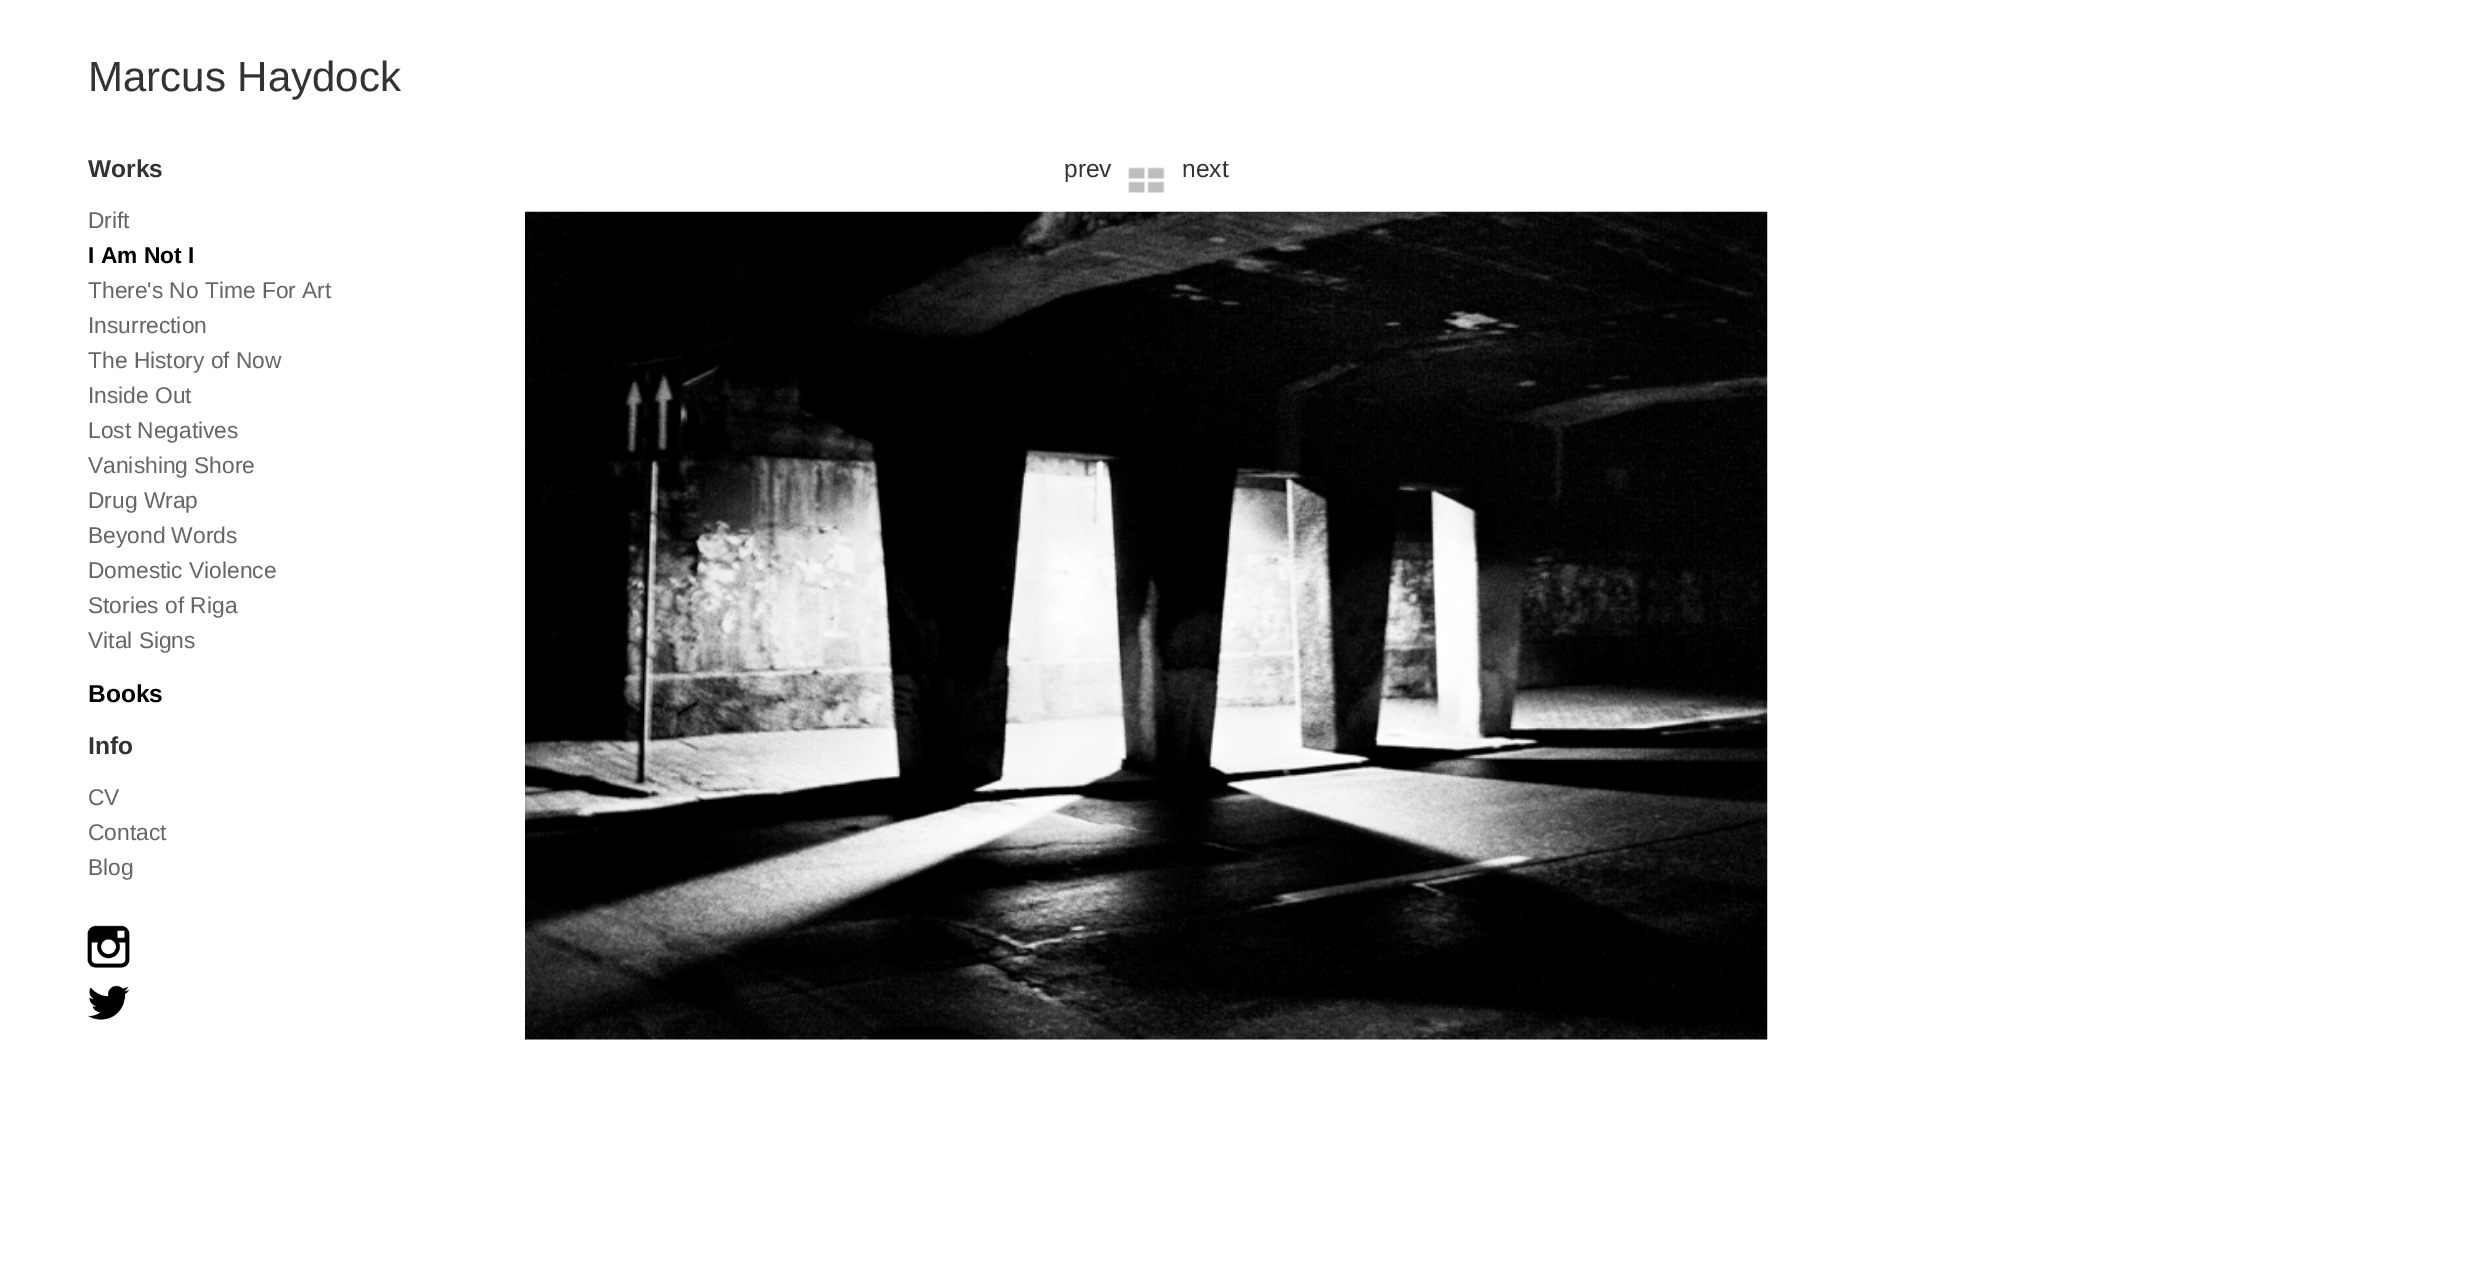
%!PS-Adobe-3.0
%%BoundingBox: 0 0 2490 1284
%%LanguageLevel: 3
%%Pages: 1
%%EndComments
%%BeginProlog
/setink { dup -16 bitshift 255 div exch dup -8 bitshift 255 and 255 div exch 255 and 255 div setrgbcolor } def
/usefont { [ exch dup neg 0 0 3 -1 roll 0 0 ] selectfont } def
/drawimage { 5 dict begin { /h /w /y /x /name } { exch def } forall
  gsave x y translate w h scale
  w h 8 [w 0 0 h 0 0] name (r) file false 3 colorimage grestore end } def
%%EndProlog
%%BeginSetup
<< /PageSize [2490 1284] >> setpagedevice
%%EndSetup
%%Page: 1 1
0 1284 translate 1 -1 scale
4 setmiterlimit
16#FFFFFF setink
0 0 2490 1284 rectfill
/LiberationSans-Regular 42 usefont
16#333333 setink
88 91 moveto (Marcus Haydock) show
/LiberationSans-Bold 24.5 usefont
88 177 moveto (Works) show
/LiberationSans-Regular 22.75 usefont
16#666666 setink
88 228 moveto (Drift) show
/LiberationSans-Bold 22.75 usefont
16#000000 setink
88 263 moveto (I Am Not I) show
/LiberationSans-Regular 22.75 usefont
16#666666 setink
[
    [(There's No Time For Art) 88 298]
    [(Insurrection) 88 333]
    [(The History of Now) 88 368]
    [(Inside Out) 88 403]
    [(Lost Negatives) 88 438]
    [(Vanishing Shore) 88 473]
    [(Drug Wrap) 88 508]
    [(Beyond Words) 88 543]
    [(Domestic Violence) 88 578]
    [(Stories of Riga) 88 613]
    [(Vital Signs) 88 648]
] { aload pop moveto show } forall
/LiberationSans-Bold 24.5 usefont
16#000000 setink
88 702 moveto (Books) show
16#333333 setink
88 754 moveto (Info) show
/LiberationSans-Regular 22.75 usefont
16#666666 setink
[
    [(CV) 88 805]
    [(Contact) 88 840]
    [(Blog) 88 875]
] { aload pop moveto show } forall
(img1.raw) 87 925 43 43 drawimage
(img2.raw) 87 985 42 35 drawimage
/LiberationSans-Regular 24.5 usefont
16#333333 setink
1064 177 moveto (prev) show
(img3.raw) 1111 164 54 29 drawimage
1182 177 moveto (next) show
(img4.raw) 525 211 1243 829 drawimage
showpage
%%EOF
